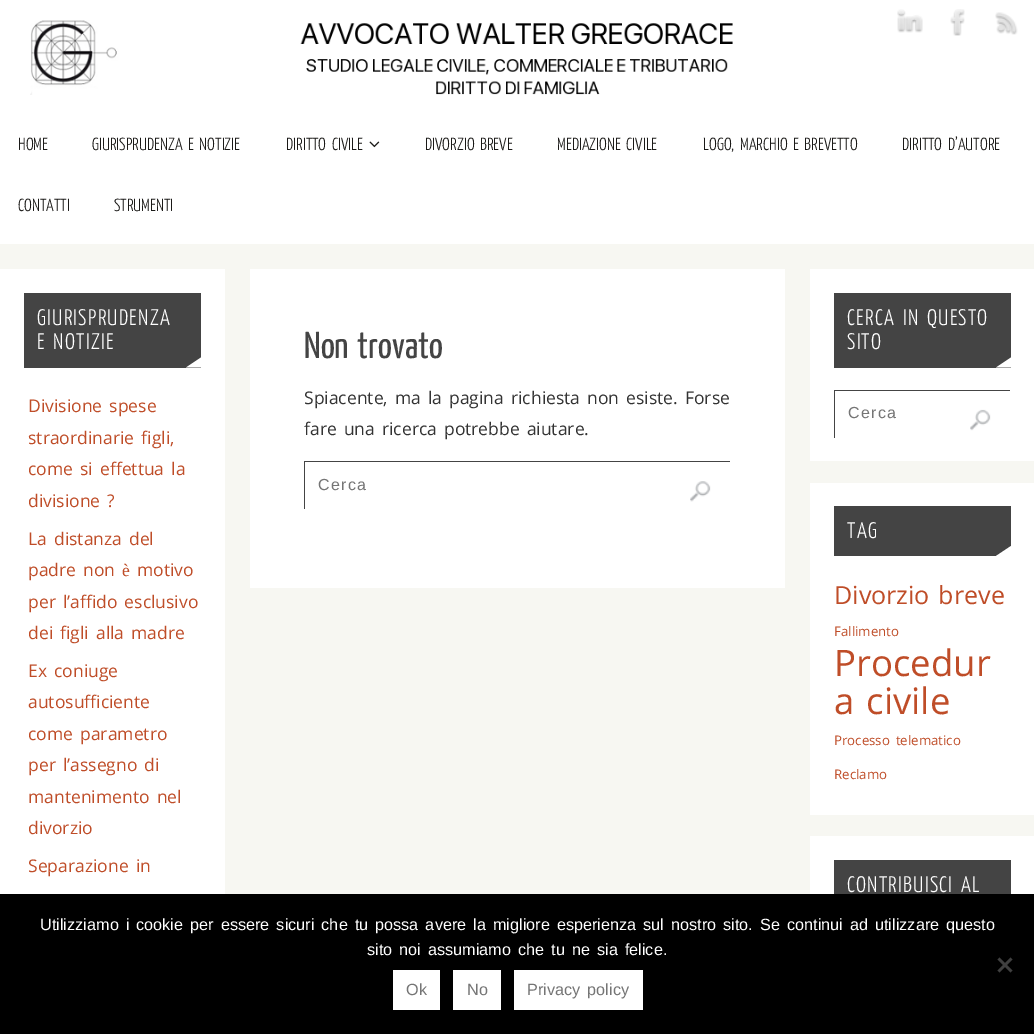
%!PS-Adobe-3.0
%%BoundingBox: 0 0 1034 1034
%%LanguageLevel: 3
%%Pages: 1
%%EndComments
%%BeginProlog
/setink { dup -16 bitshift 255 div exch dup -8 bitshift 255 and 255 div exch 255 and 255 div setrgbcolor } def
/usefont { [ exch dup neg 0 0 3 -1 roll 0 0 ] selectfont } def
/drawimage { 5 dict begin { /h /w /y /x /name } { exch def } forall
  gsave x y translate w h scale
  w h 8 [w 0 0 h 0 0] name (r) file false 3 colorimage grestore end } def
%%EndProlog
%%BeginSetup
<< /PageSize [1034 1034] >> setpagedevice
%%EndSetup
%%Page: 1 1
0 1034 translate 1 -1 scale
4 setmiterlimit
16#F7F7F2 setink
0 0 1034 1034 rectfill
16#FFFFFF setink
0 0 1034 244 rectfill
(img1.raw) 30 20 703 75 drawimage
(img2.raw) 897 9 26 24 drawimage
(img3.raw) 950 9 15 27 drawimage
(img4.raw) 995 12 23 23 drawimage
/YanoneKaffeesatz-Light 17.5 usefont
16#1A1917 setink
18 150 moveto (HOME) show
92 150 moveto 2.5 0 32 (GIURISPRUDENZA E NOTIZIE) widthshow
286 150 moveto 2.5 0 32 (DIRITTO CIVILE) widthshow
(img5.raw) 369 141 11 7 drawimage
425 150 moveto 2.5 0 32 (DIVORZIO BREVE) widthshow
557 150 moveto 2.5 0 32 (MEDIAZIONE CIVILE) widthshow
703 150 moveto 2.5 0 32 (LOGO, MARCHIO E BREVETTO) widthshow
902 150 moveto 2.5 0 32 (DIRITTO D’AUTORE) widthshow
18 211 moveto (CONTATTI) show
114 211 moveto (STRUMENTI) show
16#FFFFFF setink
0 269 225 625 rectfill
16#444444 setink
24 293 177 75 rectfill
/YanoneKaffeesatz-Light 22.5 usefont
16#FFFFFF setink
37 325 moveto 1.25 0 (GIURISPRUDENZA) ashow
37 349 moveto 2.5 0 32 1.25 0 (E NOTIZIE) awidthshow
201 367.5 moveto 186 367.5 lineto 201 357.5 lineto closepath fill
/OpenSans-Regular 17.5 usefont
16#BF4D28 setink
28 412 moveto 2.5 0 32 (Divisione spese) widthshow
28 444 moveto 2.5 0 32 (straordinarie figli,) widthshow
28 475 moveto 2.5 0 32 (come si effettua la) widthshow
28 507 moveto 2.5 0 32 (divisione ?) widthshow
28 545 moveto 2.5 0 32 (La distanza del) widthshow
28 576 moveto 2.5 0 32 (padre non) widthshow
/LiberationSerif-Regular 17.5 usefont
122 576 moveto (è) show
/OpenSans-Regular 17.5 usefont
137 576 moveto (motivo) show
28 608 moveto 2.5 0 32 (per l’affido esclusivo) widthshow
28 639 moveto 2.5 0 32 (dei figli alla madre) widthshow
28 677 moveto 2.5 0 32 (Ex coniuge) widthshow
28 708 moveto (autosufficiente) show
28 740 moveto 2.5 0 32 (come parametro) widthshow
28 771 moveto 2.5 0 32 (per l’assegno di) widthshow
28 803 moveto 2.5 0 32 (mantenimento nel) widthshow
28 834 moveto (divorzio) show
28 872 moveto 2.5 0 32 (Separazione in) widthshow
16#FFFFFF setink
250 269 535 319 rectfill
/YanoneKaffeesatz-Regular 37.5 usefont
16#444444 setink
304 358 moveto 2.5 0 32 (Non trovato) widthshow
/OpenSans-Regular 17.5 usefont
16#333333 setink
304 404 moveto 2.5 0 32 (Spiacente, ma la pagina richiesta non esiste. Forse) widthshow
304 435 moveto 2.5 0 32 (fare una ricerca potrebbe aiutare.) widthshow
[
    [304 461 427 1 16#444444]
    [730 461 1 1 16#FFFFFF]
    [304 461 1 48 16#444444]
] { aload pop setink rectfill } forall
/LiberationSans-Regular 16 usefont
16#757575 setink
318 490 moveto 1.25 0 (Cerca) ashow
(img6.raw) 690 481 21 21 drawimage
16#FFFFFF setink
810 269 224 192 rectfill
16#444444 setink
834 293 177 75 rectfill
/YanoneKaffeesatz-Light 22.5 usefont
16#FFFFFF setink
847 325 moveto 2.5 0 32 1.25 0 (CERCA IN QUESTO) awidthshow
847 349 moveto 1.25 0 (SITO) ashow
1011 367.5 moveto 996 367.5 lineto 1011 357.5 lineto closepath fill
[
    [834 390 177 1 16#444444]
    [1010 390 1 1 16#FFFFFF]
    [834 390 1 48 16#444444]
] { aload pop setink rectfill } forall
/LiberationSans-Regular 16 usefont
16#757575 setink
848 418 moveto 1.25 0 (Cerca) ashow
(img7.raw) 970 409 21 22 drawimage
16#FFFFFF setink
810 483 224 332 rectfill
16#444444 setink
834 506 177 50 rectfill
/YanoneKaffeesatz-Light 22.5 usefont
16#FFFFFF setink
847 538 moveto 1.25 0 (TAG) ashow
1011 556 moveto 996 556 lineto 1011 546 lineto closepath fill
/OpenSans-Regular 25 usefont
16#BF4D28 setink
834 604 moveto 2.5 0 32 (Divorzio breve) widthshow
/OpenSans-Regular 13.25 usefont
834 636 moveto (Fallimento) show
/OpenSans-Regular 36.5 usefont
834 676 moveto (Procedur) show
834 714 moveto 2.5 0 32 (a civile) widthshow
/OpenSans-Regular 13.25 usefont
834 745 moveto 2.5 0 32 (Processo telematico) widthshow
834 779 moveto (Reclamo) show
16#FFFFFF setink
810 836 224 58 rectfill
16#444444 setink
834 860 177 34 rectfill
/YanoneKaffeesatz-Light 22.5 usefont
16#FFFFFF setink
847 892 moveto 2.5 0 32 1.25 0 (CONTRIBUISCI AL) awidthshow
16#000000 setink
0 894 1034 140 rectfill
/LiberationSans-Regular 16.25 usefont
16#FFFFFF setink
40 930 moveto 2.5 0 32 (Utilizziamo i cookie per essere sicuri che tu possa avere la migliore esperienza sul nostro sito. Se continui ad utilizzare questo) widthshow
367 955 moveto 2.5 0 32 (sito noi assumiamo che tu ne sia felice.) widthshow
16#404040 setink
1010.5 957.5 moveto 1012.5 959.5 lineto 999.5 972.5 lineto 997.5 970.5 lineto closepath fill
997.5 959.5 moveto 999.5 957.5 lineto 1012.5 970.5 lineto 1010.5 972.5 lineto closepath fill
16#FFFFFF setink
393 970 47 40 rectfill
16#757575 setink
406 995 moveto (Ok) show
16#FFFFFF setink
453 970 48 40 rectfill
16#757575 setink
467 995 moveto (No) show
16#FFFFFF setink
514 970 129 40 rectfill
16#757575 setink
527 995 moveto 2.5 0 32 (Privacy policy) widthshow
showpage
%%EOF
